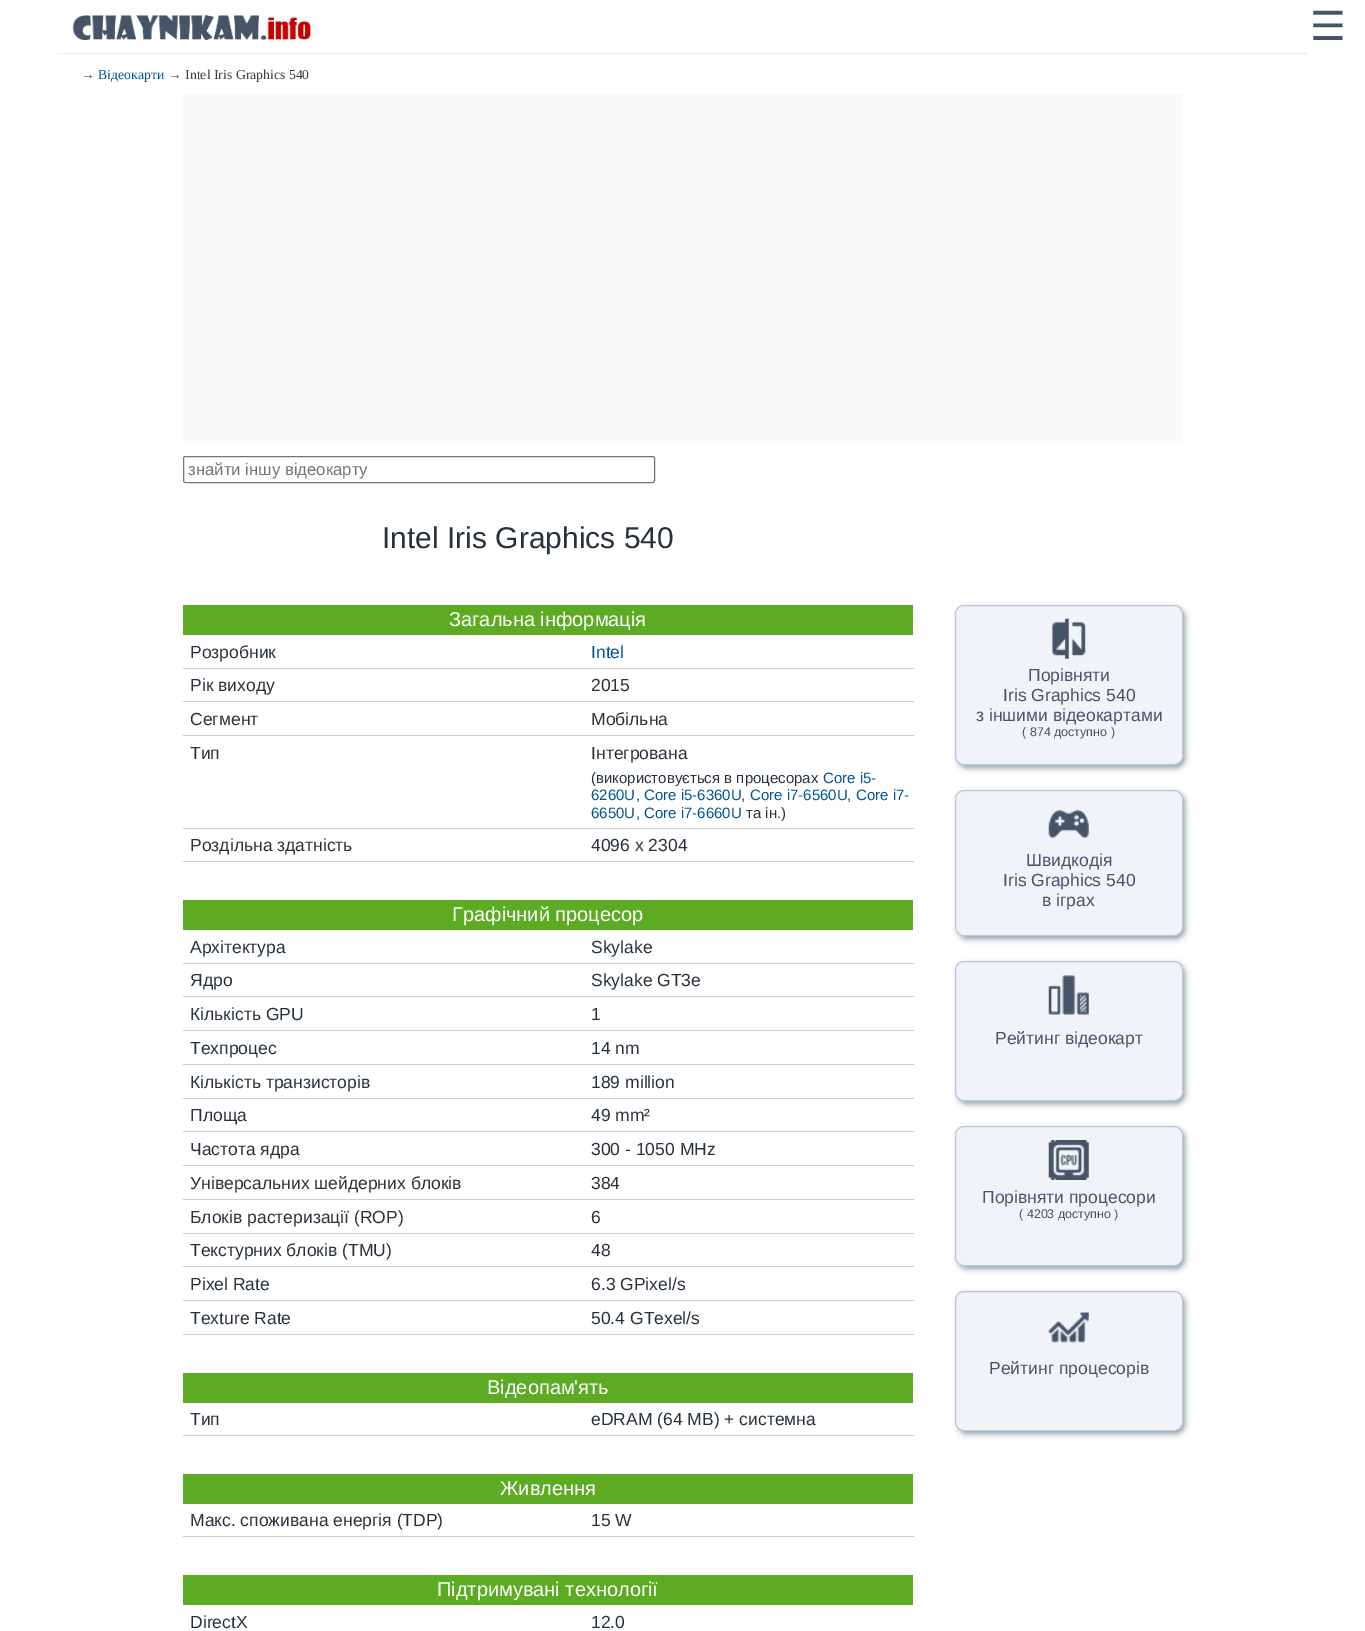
%!PS-Adobe-3.0
%%BoundingBox: 0 0 1365 1631
%%LanguageLevel: 3
%%Pages: 1
%%EndComments
%%BeginProlog
/setink { dup -16 bitshift 255 div exch dup -8 bitshift 255 and 255 div exch 255 and 255 div setrgbcolor } def
/usefont { [ exch dup neg 0 0 3 -1 roll 0 0 ] selectfont } def
/setalpha { dup .setfillconstantalpha .setstrokeconstantalpha } def
/rrect { 5 dict begin { /r /h /w /y /x } { exch def } forall
  x r add y moveto x w add y 2 copy h add r arct x w add y h add x 1 index r arct
  x y h add x y r arct x y 2 copy exch w add exch r arct closepath end } def
/softshadow { 12 dict begin { /a /b /q /h /w /y /x } { exch def } forall gsave /was 0 def
  9 -2 -9 { dup b mul 4 div /e exch def 1 sub .425 mul 2.718 exch exp 1 add a .99 .min exch div /now exch def
    1 1 now sub 1 was sub div sub setalpha /was now def
    w h .min e 2 mul add 0 gt { x e sub y e sub w e 2 mul add h e 2 mul add
      q e add b .6 mul add w h .min 2 div e add .min 0 .max rrect fill } if } for grestore end } def
/drawimage { 5 dict begin { /h /w /y /x /name } { exch def } forall
  gsave x y translate w h scale
  w h 8 [w 0 0 h 0 0] name (r) file false 3 colorimage grestore end } def
%%EndProlog
%%BeginSetup
<< /PageSize [1365 1631] /PageUsesTransparency true >> setpagedevice
%%EndSetup
%%Page: 1 1
0 .pushpdf14devicefilter
0 1631 translate 1 -1 scale
4 setmiterlimit
16#FFFFFF setink
0 0 1365 1631 rectfill
16#EBEBEB setink
58 53 1250 1 rectfill
(img1.raw) 72 15 240 25 drawimage
/DejaVuSans-Regular 40 usefont
16#475467 setink
1310 40 moveto (☰) show
/LiberationSerif-Regular 13.75 usefont
16#404040 setink
81 79 moveto (→) show
16#005599 setink
98 79 moveto (Відеокарти) show
16#404040 setink
168 79 moveto (→ Intel Iris Graphics 540) show
16#FAFAFA setink
183 94 1000 350 rectfill
16#767676 setink
183.5 456.5 471 26 2 rrect stroke
/LiberationSans-Regular 16.75 usefont
16#757575 setink
188 475 moveto (знайти іншу відеокарту) show
/LiberationSans-Regular 30 usefont
16#27323D setink
382 548 moveto (Intel Iris Graphics 540) show
16#5CAB22 setink
183 605 730 30 rectfill
/LiberationSans-Regular 20 usefont
16#FFFFFF setink
449 626 moveto (Загальна інформація) show
16#CCCCCC setink
183 668 731 1 rectfill
/LiberationSans-Regular 17.5 usefont
16#27323D setink
190 658 moveto (Розробник) show
16#005599 setink
591 658 moveto (Intel) show
16#CCCCCC setink
183 701 731 1 rectfill
16#27323D setink
190 691 moveto (Рік виходу) show
591 691 moveto (2015) show
16#CCCCCC setink
183 735 731 1 rectfill
16#27323D setink
190 725 moveto (Сегмент) show
591 725 moveto (Мобільна) show
16#CCCCCC setink
183 828 731 1 rectfill
16#27323D setink
190 759 moveto (Тип) show
591 759 moveto (Інтегрована) show
/LiberationSans-Regular 15 usefont
591 783 moveto (\(використовується в процесорах) show
16#005599 setink
823 783 moveto (Core i5-) show
591 800 moveto (6260U) show
16#27323D setink
636 800 moveto (,) show
16#005599 setink
644 800 moveto (Core i5-6360U) show
16#27323D setink
741 800 moveto (,) show
16#005599 setink
750 800 moveto (Core i7-6560U) show
16#27323D setink
847 800 moveto (,) show
16#005599 setink
856 800 moveto (Core i7-) show
591 818 moveto (6650U) show
16#27323D setink
636 818 moveto (,) show
16#005599 setink
644 818 moveto (Core i7-6660U) show
16#27323D setink
746 818 moveto (та ін.\)) show
16#CCCCCC setink
183 861 731 1 rectfill
/LiberationSans-Regular 17.5 usefont
16#27323D setink
190 851 moveto (Роздільна здатність) show
591 851 moveto (4096 x 2304) show
16#5CAB22 setink
183 900 730 30 rectfill
/LiberationSans-Regular 20 usefont
16#FFFFFF setink
452 921 moveto (Графічний процесор) show
16#CCCCCC setink
183 963 731 1 rectfill
/LiberationSans-Regular 17.5 usefont
16#27323D setink
190 953 moveto (Архітектура) show
591 953 moveto (Skylake) show
16#CCCCCC setink
183 996 731 1 rectfill
16#27323D setink
190 986 moveto (Ядро) show
591 986 moveto (Skylake GT3e) show
16#CCCCCC setink
183 1030 731 1 rectfill
16#27323D setink
190 1020 moveto (Кількість GPU) show
591 1020 moveto (1) show
16#CCCCCC setink
183 1064 731 1 rectfill
16#27323D setink
190 1054 moveto (Техпроцес) show
591 1054 moveto (14 nm) show
16#CCCCCC setink
183 1098 731 1 rectfill
16#27323D setink
190 1088 moveto (Кількість транзисторів) show
591 1088 moveto (189 million) show
16#CCCCCC setink
183 1131 731 1 rectfill
16#27323D setink
190 1121 moveto (Площа) show
591 1121 moveto (49 mm²) show
16#CCCCCC setink
183 1165 731 1 rectfill
16#27323D setink
190 1155 moveto (Частота ядра) show
591 1155 moveto (300 - 1050 MHz) show
16#CCCCCC setink
183 1199 731 1 rectfill
16#27323D setink
190 1189 moveto (Універсальних шейдерних блоків) show
591 1189 moveto (384) show
16#CCCCCC setink
183 1233 731 1 rectfill
16#27323D setink
190 1223 moveto (Блоків растеризації \(ROP\)) show
591 1223 moveto (6) show
16#CCCCCC setink
183 1266 731 1 rectfill
16#27323D setink
190 1256 moveto (Текстурних блоків \(TMU\)) show
591 1256 moveto (48) show
16#CCCCCC setink
183 1300 731 1 rectfill
16#27323D setink
190 1290 moveto (Pixel Rate) show
591 1290 moveto (6.3 GPixel/s) show
16#CCCCCC setink
183 1334 731 1 rectfill
16#27323D setink
190 1324 moveto (Texture Rate) show
591 1324 moveto (50.4 GTexel/s) show
16#5CAB22 setink
183 1373 730 30 rectfill
/LiberationSans-Regular 20 usefont
16#FFFFFF setink
487 1394 moveto (Відеопам'ять) show
16#CCCCCC setink
183 1435 731 1 rectfill
/LiberationSans-Regular 17.5 usefont
16#27323D setink
190 1425 moveto (Тип) show
591 1425 moveto (eDRAM \(64 MB\) + системна) show
16#5CAB22 setink
183 1474 730 30 rectfill
/LiberationSans-Regular 20 usefont
16#FFFFFF setink
500 1495 moveto (Живлення) show
16#CCCCCC setink
183 1536 731 1 rectfill
/LiberationSans-Regular 17.5 usefont
16#27323D setink
190 1526 moveto (Макс. споживана енергія \(TDP\)) show
591 1526 moveto (15 W) show
16#5CAB22 setink
183 1575 730 30 rectfill
/LiberationSans-Regular 20 usefont
16#FFFFFF setink
437 1596 moveto (Підтримувані технології) show
/LiberationSans-Regular 17.5 usefont
16#27323D setink
190 1628 moveto (DirectX) show
591 1628 moveto (12.0) show
16#8BA0A9 setink
958 608 227 160 9 3 1 softshadow
16#F0F3F8 setink
955.5 605.5 227 159 8.5 rrect gsave fill grestore
16#BEC6D8 setink
stroke
(img2.raw) 1051 618 36 41 drawimage
16#475467 setink
[
    [(Порівняти) 1028 681]
    [(Iris Graphics 540) 1003 701]
    [(з іншими відеокартами) 976 721]
] { aload pop moveto show } forall
/LiberationSans-Regular 12.5 usefont
1022 736 moveto (\( 874 доступно \)) show
16#8BA0A9 setink
958 793 227 146 9 3 1 softshadow
16#F0F3F8 setink
955.5 790.5 227 145 8.5 rrect gsave fill grestore
16#BEC6D8 setink
stroke
(img3.raw) 1048 809 41 29 drawimage
/LiberationSans-Regular 17.5 usefont
16#475467 setink
[
    [(Швидкодія) 1026 866]
    [(Iris Graphics 540) 1003 886]
    [(в іграх) 1042 906]
] { aload pop moveto show } forall
16#8BA0A9 setink
958 964 227 140 9 3 1 softshadow
16#F0F3F8 setink
955.5 961.5 227 139 8.5 rrect gsave fill grestore
16#BEC6D8 setink
stroke
(img4.raw) 1048 975 41 40 drawimage
16#475467 setink
995 1044 moveto (Рейтинг відеокарт) show
16#8BA0A9 setink
958 1129 227 140 9 3 1 softshadow
16#F0F3F8 setink
955.5 1126.5 227 139 8.5 rrect gsave fill grestore
16#BEC6D8 setink
stroke
(img5.raw) 1048 1140 41 40 drawimage
16#475467 setink
982 1203 moveto (Порівняти процесори) show
/LiberationSans-Regular 12.5 usefont
1019 1218 moveto (\( 4203 доступно \)) show
16#8BA0A9 setink
958 1294 227 140 9 3 1 softshadow
16#F0F3F8 setink
955.5 1291.5 227 139 8.5 rrect gsave fill grestore
16#BEC6D8 setink
stroke
(img6.raw) 1048 1312 41 31 drawimage
/LiberationSans-Regular 17.5 usefont
16#475467 setink
989 1374 moveto (Рейтинг процесорів) show
.poppdf14devicefilter showpage
%%EOF
